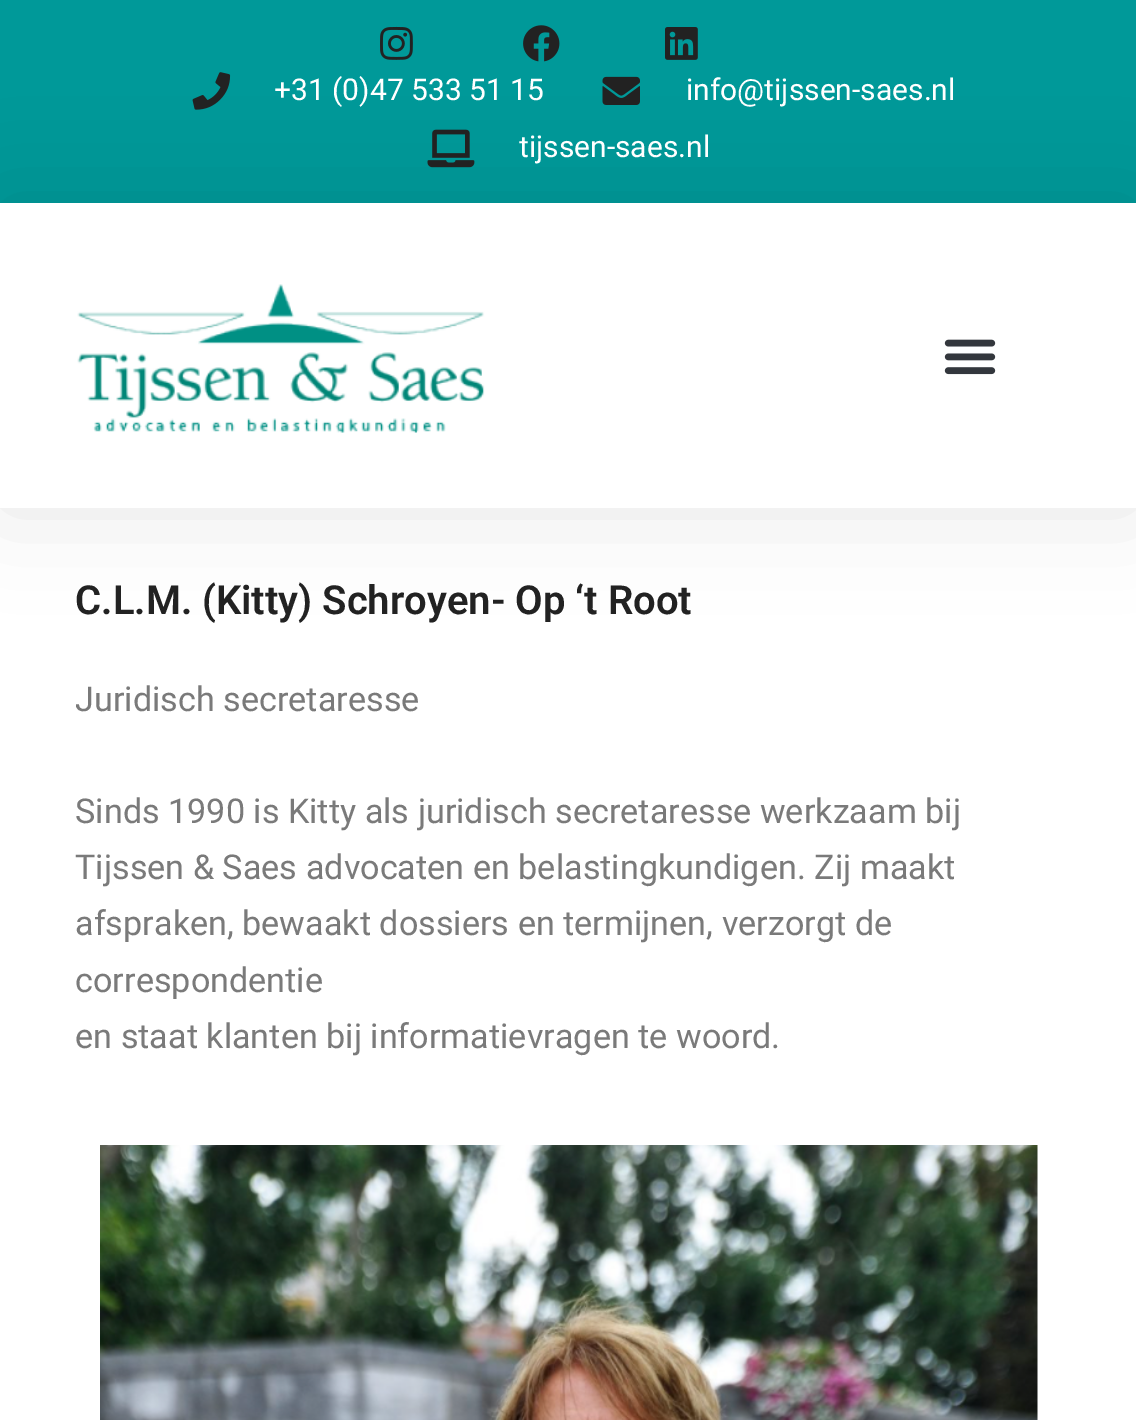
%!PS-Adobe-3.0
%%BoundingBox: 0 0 1136 1420
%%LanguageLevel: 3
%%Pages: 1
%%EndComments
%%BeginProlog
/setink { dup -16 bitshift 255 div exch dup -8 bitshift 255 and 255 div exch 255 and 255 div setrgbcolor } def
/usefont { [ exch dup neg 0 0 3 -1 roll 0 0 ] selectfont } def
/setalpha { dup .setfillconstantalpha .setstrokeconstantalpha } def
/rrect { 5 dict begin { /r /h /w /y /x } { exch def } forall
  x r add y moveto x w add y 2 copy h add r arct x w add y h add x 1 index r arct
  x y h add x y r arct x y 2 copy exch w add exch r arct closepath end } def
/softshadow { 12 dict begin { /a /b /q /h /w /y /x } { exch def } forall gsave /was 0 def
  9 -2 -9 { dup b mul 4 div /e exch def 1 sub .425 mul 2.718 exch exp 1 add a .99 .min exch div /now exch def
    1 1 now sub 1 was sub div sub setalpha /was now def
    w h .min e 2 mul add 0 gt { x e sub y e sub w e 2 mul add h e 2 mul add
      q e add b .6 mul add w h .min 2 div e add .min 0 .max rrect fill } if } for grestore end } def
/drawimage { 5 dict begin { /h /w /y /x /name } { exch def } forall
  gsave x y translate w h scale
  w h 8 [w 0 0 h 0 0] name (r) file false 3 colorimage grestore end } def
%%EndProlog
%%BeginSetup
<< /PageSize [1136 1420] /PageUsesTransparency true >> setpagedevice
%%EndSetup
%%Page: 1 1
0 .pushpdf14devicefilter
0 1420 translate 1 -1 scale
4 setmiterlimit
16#FFFFFF setink
0 0 1136 1420 rectfill
16#009999 setink
0 0 1136 203 rectfill
(img3.raw) 380 26 33 34 drawimage
(img4.raw) 523 25 37 37 drawimage
(img5.raw) 665 27 33 33 drawimage
(img6.raw) 192 72 39 38 drawimage
(img7.raw) 602 76 38 29 drawimage
(img8.raw) 427 129 48 39 drawimage
gsave
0 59 moveto 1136 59 lineto 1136 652 lineto 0 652 lineto closepath 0 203 moveto 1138 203 lineto 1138 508 lineto 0 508 lineto closepath eoclip newpath
16#000000 setink
0 203 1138 305 0 47.5 0.1 softshadow
grestore
(img1.raw) 77 284 408 149 drawimage
(img2.raw) 944 339 52 36 drawimage
/Roboto-Regular 30 usefont
16#FFFFFF setink
[
    [(+31 \(0\)47 533 51 15) 274 100]
    [(info@tijssen-saes.nl) 686 100]
    [(tijssen-saes.nl) 519 157]
] { aload pop moveto show } forall
/Roboto-SemiBold 40 usefont
16#222222 setink
75 614 moveto (C.L.M. \(Kitty\) Schroyen- Op ‘t Root) show
/Roboto-Regular 34.2 usefont
16#7A7A7A setink
[
    [(Juridisch secretaresse) 75 711]
    [(Sinds 1990 is Kitty als juridisch secretaresse werkzaam bij) 75 823]
    [(Tijssen & Saes advocaten en belastingkundigen. Zij maakt) 75 879]
    [(afspraken, bewaakt dossiers en termijnen, verzorgt de) 75 935]
    [(correspondentie) 75 992]
    [(en staat klanten bij informatievragen te woord.) 75 1048]
] { aload pop moveto show } forall
(img9.raw) 100 1145 938 275 drawimage
.poppdf14devicefilter showpage
%%EOF
